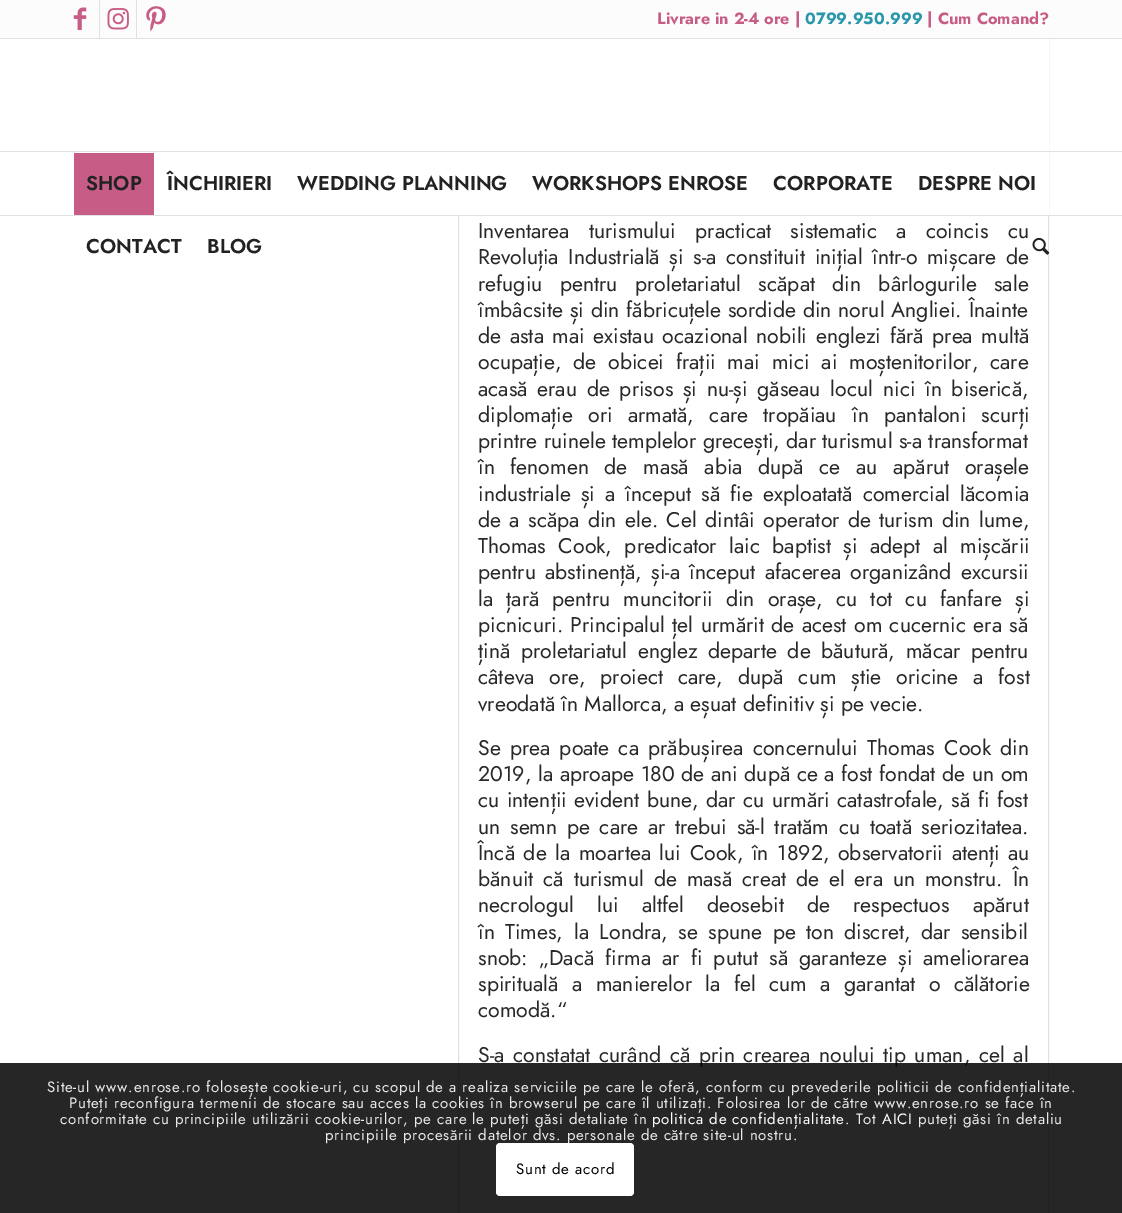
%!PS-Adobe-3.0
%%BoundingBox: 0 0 1122 1213
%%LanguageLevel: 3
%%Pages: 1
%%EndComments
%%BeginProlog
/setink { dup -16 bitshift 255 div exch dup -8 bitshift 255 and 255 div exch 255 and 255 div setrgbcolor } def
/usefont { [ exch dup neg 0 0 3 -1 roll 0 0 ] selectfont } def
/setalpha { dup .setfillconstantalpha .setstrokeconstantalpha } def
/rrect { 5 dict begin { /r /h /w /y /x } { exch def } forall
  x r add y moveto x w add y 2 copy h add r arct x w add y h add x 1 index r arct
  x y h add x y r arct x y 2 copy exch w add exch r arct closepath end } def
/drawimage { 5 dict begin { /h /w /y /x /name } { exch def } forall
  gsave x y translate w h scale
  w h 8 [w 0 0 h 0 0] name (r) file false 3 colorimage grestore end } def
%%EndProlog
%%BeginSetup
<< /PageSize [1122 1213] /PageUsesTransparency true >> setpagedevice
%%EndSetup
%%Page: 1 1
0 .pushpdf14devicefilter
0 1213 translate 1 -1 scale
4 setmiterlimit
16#FFFFFF setink
0 0 1122 1213 rectfill
16#E1E1E1 setink
458.5 -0.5 590 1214 rectstroke
[
    [0 0 1122 38 16#FCFCFC]
    [0 38 1122 1 16#E1E1E1]
    [99 0 1 38 16#E1E1E1]
] { aload pop setink rectfill } forall
(img1.raw) 73 7 14 23 drawimage
136 0 1 38 rectfill
(img2.raw) 107 8 22 22 drawimage
(img3.raw) 146 6 20 26 drawimage
/Jost-Bold 16.25 usefont
16#C75D87 setink
657 24 moveto (Livrare in 2-4 ore |) show
16#2997AB setink
805 24 moveto (0799.950.999) show
16#C75D87 setink
927 24 moveto (| Cum Comand?) show
[
    [458 39 591 176 16#FFFFFF]
    [0 215 1122 1 16#E1E1E1]
    [0 151 1122 1 16#E1E1E1]
    [74 153 80 62 16#C75D87]
] { aload pop setink rectfill } forall
/Jost-SemiBold 20 usefont
16#222222 setink
[
    [(SHOP) 86 190]
    [(ÎNCHIRIERI) 167 190]
    [(WEDDING PLANNING) 297 190]
    [(WORKSHOPS ENROSE) 532 190]
    [(CORPORATE) 773 190]
    [(DESPRE NOI) 918 190]
    [(CONTACT) 86 253]
    [(BLOG) 207 253]
] { aload pop moveto show } forall
(img4.raw) 1032 237 18 18 drawimage
/Jost-Regular 21.25 usefont
16#282828 setink
478 238 moveto 13 0 32 (Inventarea turismului practicat sistematic a coincis cu) widthshow
478 264 moveto 3.25 0 32 (Revoluția Industrială și s-a constituit inițial într-o mișcare de) widthshow
478 291 moveto 11 0 32 (refugiu pentru proletariatul scăpat din bârlogurile sale) widthshow
478 317 moveto 0.5 0 32 (îmbâcsite și din făbricuțele sordide din norul Angliei. Înainte) widthshow
478 343 moveto 2.25 0 32 (de asta mai existau ocazional nobili englezi fără prea multă) widthshow
478 369 moveto 5.5 0 32 (ocupație, de obicei frații mai mici ai moștenitorilor, care) widthshow
478 396 moveto 3.4 0 32 (acasă erau de prisos și nu-și găseau locul nici în biserică,) widthshow
478 422 moveto 9 0 32 (diplomație ori armată, care tropăiau în pantaloni scurți) widthshow
478 448 moveto (printre ruinele templelor grecești, dar turismul s-a transformat) show
478 474 moveto 9.25 0 32 (în fenomen de masă abia după ce au apărut orașele) widthshow
478 501 moveto 3.75 0 32 (industriale și a început să fie exploatată comercial lăcomia) widthshow
478 527 moveto 2 0 32 (de a scăpa din ele. Cel dintâi operator de turism din lume,) widthshow
478 553 moveto 6 0 32 (Thomas Cook, predicator laic baptist și adept al mișcării) widthshow
478 579 moveto 3 0 32 (pentru abstinență, și-a început afacerea organizând excursii) widthshow
478 606 moveto 6.75 0 32 (la țară pentru muncitorii din orașe, cu tot cu fanfare și) widthshow
478 632 moveto 1 0 32 (picnicuri. Principalul țel urmărit de acest om cucernic era să) widthshow
478 658 moveto 4.25 0 32 (țină proletariatul englez departe de băutură, măcar pentru) widthshow
478 684 moveto 8.5 0 32 (câteva ore, proiect care, după cum știe oricine a fost) widthshow
478 711 moveto (vreodată în Mallorca, a eșuat definitiv și pe vecie.) show
478 755 moveto 2.75 0 32 (Se prea poate ca prăbușirea concernului Thomas Cook din) widthshow
478 781 moveto 0.25 0 32 (2019, la aproape 180 de ani după ce a fost fondat de un om) widthshow
478 807 moveto 1 0 32 (cu intenții evident bune, dar cu urmări catastrofale, să fi fost) widthshow
478 834 moveto 3.25 0 32 (un semn pe care ar trebui să-l tratăm cu toată seriozitatea.) widthshow
478 860 moveto 2.25 0 32 (Încă de la moartea lui Cook, în 1892, observatorii atenți au) widthshow
478 886 moveto 3.5 0 32 (bănuit că turismul de masă creat de el era un monstru. În) widthshow
478 912 moveto 16.75 0 32 (necrologul lui altfel deosebit de respectuos apărut) widthshow
478 939 moveto (în) show
505 939 moveto (Times,) show
574 939 moveto 4 0 32 (la Londra, se spune pe ton discret, dar sensibil) widthshow
478 965 moveto 4.75 0 32 (snob: „Dacă firma ar fi putut să garanteze și ameliorarea) widthshow
478 991 moveto 7 0 32 (spirituală a manierelor la fel cum a garantat o călătorie) widthshow
478 1017 moveto (comodă.“) show
478 1062 moveto 2.25 0 32 (S-a constatat curând că prin crearea noului tip uman, cel al) widthshow
0.85 setalpha
16#000000 setink
0 1063 1122 150 rectfill
/Jost-Regular 15 usefont
1 setalpha
16#E9E9E9 setink
47 1092 moveto 0.75 0 (Site-ul www.enrose.ro folosește cookie-uri, cu scopul de a realiza serviciile pe care le oferă, conform cu prevederile politicii de confidențialitate.) ashow
69 1108 moveto 0.75 0 (Puteți reconfigura termenii de stocare sau acces la cookies în browserul pe care îl utilizați. Folosirea lor de către www.enrose.ro se face în) ashow
60 1124 moveto 0.75 0 (conformitate cu principiile utilizării cookie-urilor, pe care le puteți găsi detaliate în) ashow
16#FFFFFF setink
652 1124 moveto 0.75 0 (politica de confidențialitate) ashow
16#E9E9E9 setink
845 1124 moveto 0.75 0 (. Tot) ashow
16#FFFFFF setink
882 1124 moveto 0.75 0 (AICI) ashow
16#E9E9E9 setink
918 1124 moveto 0.75 0 (puteți găsi în detaliu) ashow
325 1140 moveto 0.75 0 (principiile procesării datelor dvs. personale de către site-ul nostru.) ashow
16#FFFFFF setink
496 1143 138 53 4 rrect fill
16#000000 setink
516 1174 moveto 0.75 0 (Sunt de acord) ashow
.poppdf14devicefilter showpage
%%EOF
